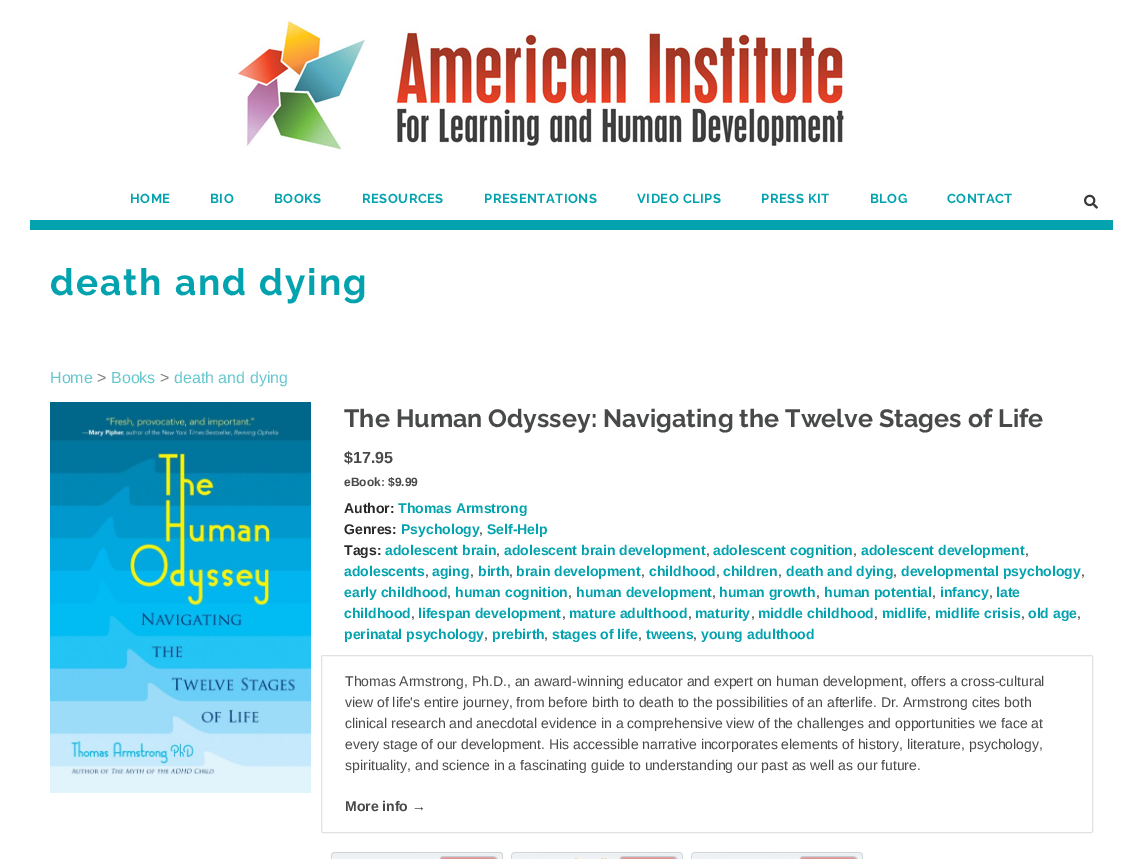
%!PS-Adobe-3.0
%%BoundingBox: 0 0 1143 859
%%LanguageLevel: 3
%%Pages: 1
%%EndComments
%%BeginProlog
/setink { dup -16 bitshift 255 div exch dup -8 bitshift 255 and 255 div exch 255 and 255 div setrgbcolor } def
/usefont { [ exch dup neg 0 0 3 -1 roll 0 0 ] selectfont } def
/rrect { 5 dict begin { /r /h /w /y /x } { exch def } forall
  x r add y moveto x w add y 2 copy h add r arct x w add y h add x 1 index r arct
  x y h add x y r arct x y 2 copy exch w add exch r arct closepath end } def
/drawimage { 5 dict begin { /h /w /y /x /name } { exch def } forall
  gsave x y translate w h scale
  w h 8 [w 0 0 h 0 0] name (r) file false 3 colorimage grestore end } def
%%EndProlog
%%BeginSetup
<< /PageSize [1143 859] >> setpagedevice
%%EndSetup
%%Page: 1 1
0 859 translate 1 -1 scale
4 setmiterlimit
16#FFFFFF setink
0 0 1143 859 rectfill
(img1.raw) 236 20 608 134 drawimage
16#02A2AE setink
30 220 1083 10 rectfill
/Raleway-Bold 13 usefont
130 203 moveto 0.5 0 (HOME) ashow
210 203 moveto 0.5 0 (BIO) ashow
274 203 moveto 0.5 0 (BOOKS) ashow
362 203 moveto 0.5 0 (RESOURCES) ashow
484 203 moveto 0.5 0 (PRESENTATIONS) ashow
637 203 moveto 0.5 0 (VIDEO CLIPS) ashow
761 203 moveto 0.5 0 (PRESS KIT) ashow
870 203 moveto 0.5 0 (BLOG) ashow
947 203 moveto 0.5 0 (CONTACT) ashow
(img2.raw) 1084 194 14 15 drawimage
/Raleway-Bold 37 usefont
50 295 moveto 2 0 (death and dying) ashow
/LiberationSans-Regular 16 usefont
16#67C7CE setink
50 383 moveto (Home) show
16#7E7E7E setink
97 383 moveto (>) show
16#67C7CE setink
111 383 moveto (Books) show
16#7E7E7E setink
160 383 moveto (>) show
16#67C7CE setink
174 383 moveto (death and dying) show
(img3.raw) 50 402 261 391 drawimage
/Raleway-Bold 25 usefont
16#484949 setink
344 427 moveto (The Human Odyssey: Navigating the Twelve Stages of Life) show
/LiberationSans-Bold 16 usefont
344 463 moveto ($17.95) show
/LiberationSans-Bold 12 usefont
344 486 moveto (eBook: $9.99) show
/LiberationSans-Bold 14 usefont
16#282828 setink
344 513 moveto (Author:) show
16#02A2AE setink
398 513 moveto (Thomas Armstrong) show
16#282828 setink
344 534 moveto (Genres:) show
16#02A2AE setink
401 534 moveto (Psychology) show
/LiberationSans-Regular 14 usefont
16#282828 setink
479 534 moveto (,) show
/LiberationSans-Bold 14 usefont
16#02A2AE setink
487 534 moveto (Self-Help) show
16#282828 setink
344 555 moveto (Tags:) show
16#02A2AE setink
385 555 moveto (adolescent brain) show
/LiberationSans-Regular 14 usefont
16#282828 setink
496 555 moveto (,) show
/LiberationSans-Bold 14 usefont
16#02A2AE setink
504 555 moveto (adolescent brain development) show
/LiberationSans-Regular 14 usefont
16#282828 setink
706 555 moveto (,) show
/LiberationSans-Bold 14 usefont
16#02A2AE setink
713 555 moveto (adolescent cognition) show
/LiberationSans-Regular 14 usefont
16#282828 setink
853 555 moveto (,) show
/LiberationSans-Bold 14 usefont
16#02A2AE setink
861 555 moveto (adolescent development) show
/LiberationSans-Regular 14 usefont
16#282828 setink
1025 555 moveto (,) show
/LiberationSans-Bold 14 usefont
16#02A2AE setink
344 576 moveto (adolescents) show
/LiberationSans-Regular 14 usefont
16#282828 setink
425 576 moveto (,) show
/LiberationSans-Bold 14 usefont
16#02A2AE setink
432 576 moveto (aging) show
/LiberationSans-Regular 14 usefont
16#282828 setink
470 576 moveto (,) show
/LiberationSans-Bold 14 usefont
16#02A2AE setink
478 576 moveto (birth) show
/LiberationSans-Regular 14 usefont
16#282828 setink
509 576 moveto (,) show
/LiberationSans-Bold 14 usefont
16#02A2AE setink
516 576 moveto (brain development) show
/LiberationSans-Regular 14 usefont
16#282828 setink
641 576 moveto (,) show
/LiberationSans-Bold 14 usefont
16#02A2AE setink
649 576 moveto (childhood) show
/LiberationSans-Regular 14 usefont
16#282828 setink
716 576 moveto (,) show
/LiberationSans-Bold 14 usefont
16#02A2AE setink
723 576 moveto (children) show
/LiberationSans-Regular 14 usefont
16#282828 setink
778 576 moveto (,) show
/LiberationSans-Bold 14 usefont
16#02A2AE setink
786 576 moveto (death and dying) show
/LiberationSans-Regular 14 usefont
16#282828 setink
893 576 moveto (,) show
/LiberationSans-Bold 14 usefont
16#02A2AE setink
901 576 moveto (developmental psychology) show
/LiberationSans-Regular 14 usefont
16#282828 setink
1081 576 moveto (,) show
/LiberationSans-Bold 14 usefont
16#02A2AE setink
344 597 moveto (early childhood) show
/LiberationSans-Regular 14 usefont
16#282828 setink
447 597 moveto (,) show
/LiberationSans-Bold 14 usefont
16#02A2AE setink
455 597 moveto (human cognition) show
/LiberationSans-Regular 14 usefont
16#282828 setink
568 597 moveto (,) show
/LiberationSans-Bold 14 usefont
16#02A2AE setink
576 597 moveto (human development) show
/LiberationSans-Regular 14 usefont
16#282828 setink
712 597 moveto (,) show
/LiberationSans-Bold 14 usefont
16#02A2AE setink
719 597 moveto (human growth) show
/LiberationSans-Regular 14 usefont
16#282828 setink
816 597 moveto (,) show
/LiberationSans-Bold 14 usefont
16#02A2AE setink
824 597 moveto (human potential) show
/LiberationSans-Regular 14 usefont
16#282828 setink
932 597 moveto (,) show
/LiberationSans-Bold 14 usefont
16#02A2AE setink
940 597 moveto (infancy) show
/LiberationSans-Regular 14 usefont
16#282828 setink
989 597 moveto (,) show
/LiberationSans-Bold 14 usefont
16#02A2AE setink
996 597 moveto (late) show
344 618 moveto (childhood) show
/LiberationSans-Regular 14 usefont
16#282828 setink
411 618 moveto (,) show
/LiberationSans-Bold 14 usefont
16#02A2AE setink
418 618 moveto (lifespan development) show
/LiberationSans-Regular 14 usefont
16#282828 setink
562 618 moveto (,) show
/LiberationSans-Bold 14 usefont
16#02A2AE setink
569 618 moveto (mature adulthood) show
/LiberationSans-Regular 14 usefont
16#282828 setink
688 618 moveto (,) show
/LiberationSans-Bold 14 usefont
16#02A2AE setink
695 618 moveto (maturity) show
/LiberationSans-Regular 14 usefont
16#282828 setink
751 618 moveto (,) show
/LiberationSans-Bold 14 usefont
16#02A2AE setink
758 618 moveto (middle childhood) show
/LiberationSans-Regular 14 usefont
16#282828 setink
874 618 moveto (,) show
/LiberationSans-Bold 14 usefont
16#02A2AE setink
882 618 moveto (midlife) show
/LiberationSans-Regular 14 usefont
16#282828 setink
927 618 moveto (,) show
/LiberationSans-Bold 14 usefont
16#02A2AE setink
935 618 moveto (midlife crisis) show
/LiberationSans-Regular 14 usefont
16#282828 setink
1021 618 moveto (,) show
/LiberationSans-Bold 14 usefont
16#02A2AE setink
1028 618 moveto (old age) show
/LiberationSans-Regular 14 usefont
16#282828 setink
1077 618 moveto (,) show
/LiberationSans-Bold 14 usefont
16#02A2AE setink
344 639 moveto (perinatal psychology) show
/LiberationSans-Regular 14 usefont
16#282828 setink
484 639 moveto (,) show
/LiberationSans-Bold 14 usefont
16#02A2AE setink
492 639 moveto (prebirth) show
/LiberationSans-Regular 14 usefont
16#282828 setink
544 639 moveto (,) show
/LiberationSans-Bold 14 usefont
16#02A2AE setink
552 639 moveto (stages of life) show
/LiberationSans-Regular 14 usefont
16#282828 setink
638 639 moveto (,) show
/LiberationSans-Bold 14 usefont
16#02A2AE setink
646 639 moveto (tweens) show
/LiberationSans-Regular 14 usefont
16#282828 setink
693 639 moveto (,) show
/LiberationSans-Bold 14 usefont
16#02A2AE setink
701 639 moveto (young adulthood) show
16#E0E2E2 setink
321.5 655.5 771 177 1.5 rrect stroke
/LiberationSans-Regular 14 usefont
16#484949 setink
[
    [(Thomas Armstrong, Ph.D., an award-winning educator and expert on human development, offers a cross-cultural) 345 686]
    [(view of life's entire journey, from before birth to death to the possibilities of an afterlife. Dr. Armstrong cites both) 345 707]
    [(clinical research and anecdotal evidence in a comprehensive view of the challenges and opportunities we face at) 345 728]
    [(every stage of our development. His accessible narrative incorporates elements of history, literature, psychology,) 345 749]
    [(spirituality, and science in a fascinating guide to understanding our past as well as our future.) 345 770]
] { aload pop moveto show } forall
/LiberationSans-Bold 14 usefont
345 811 moveto (More info →) show
(img4.raw) 331 852 172 7 drawimage
(img5.raw) 511 852 172 7 drawimage
(img6.raw) 691 852 172 7 drawimage
showpage
%%EOF
